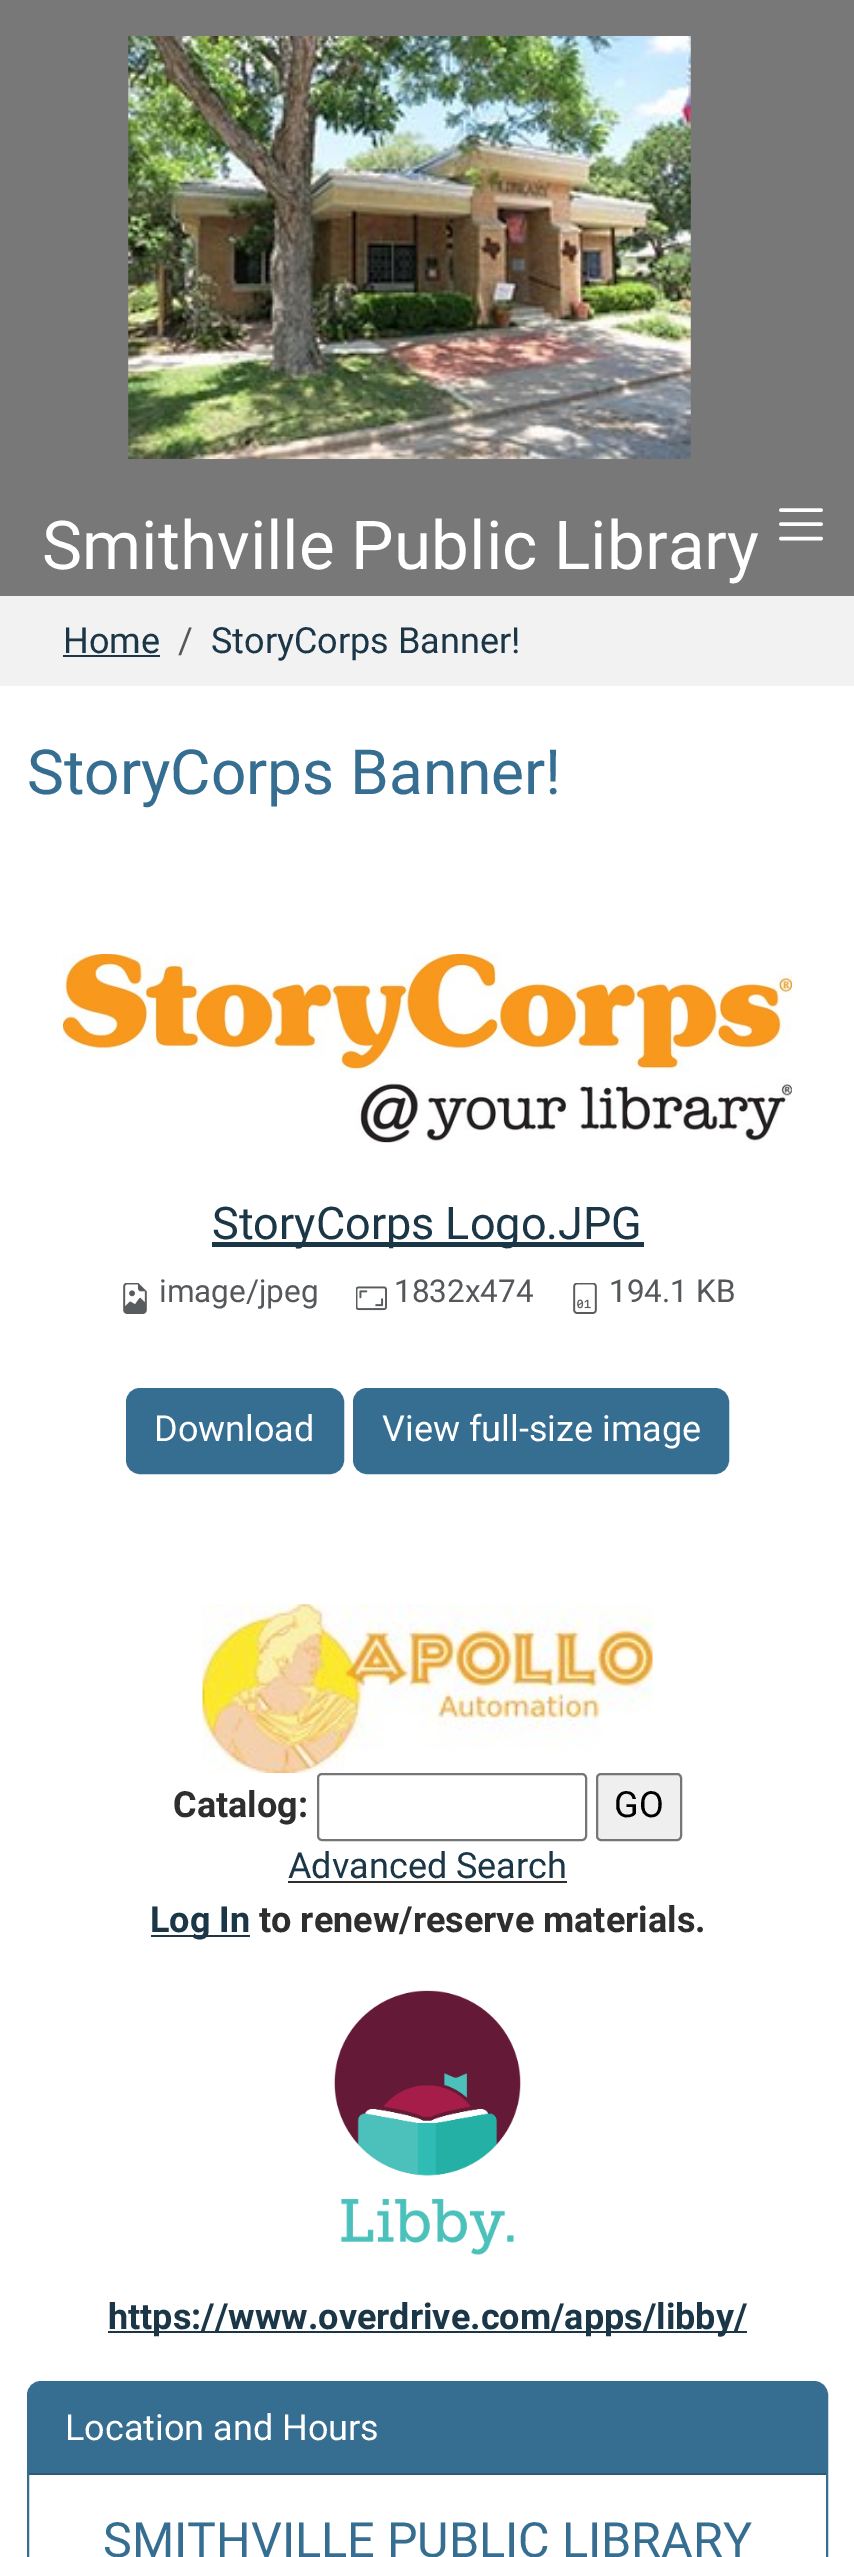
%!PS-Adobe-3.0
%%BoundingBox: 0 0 854 2557
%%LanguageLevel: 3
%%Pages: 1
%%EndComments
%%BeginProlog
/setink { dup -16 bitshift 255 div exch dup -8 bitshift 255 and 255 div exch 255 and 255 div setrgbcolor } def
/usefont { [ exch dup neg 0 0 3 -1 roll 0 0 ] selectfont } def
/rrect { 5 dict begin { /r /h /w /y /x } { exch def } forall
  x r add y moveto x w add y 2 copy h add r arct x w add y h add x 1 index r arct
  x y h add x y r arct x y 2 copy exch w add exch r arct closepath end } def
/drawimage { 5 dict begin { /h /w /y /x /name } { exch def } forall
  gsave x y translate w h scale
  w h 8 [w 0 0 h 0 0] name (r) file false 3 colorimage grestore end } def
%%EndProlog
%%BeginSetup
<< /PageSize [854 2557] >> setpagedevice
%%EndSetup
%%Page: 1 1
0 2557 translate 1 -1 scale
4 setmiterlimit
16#FFFFFF setink
0 0 854 2557 rectfill
16#787878 setink
0 0 854 596 rectfill
(img1.raw) 128 36 563 423 drawimage
/Roboto-Regular 67.5 usefont
16#FFFFFF setink
42 569 moveto (Smithville Public Library) show
3.6 setlinewidth
1 setlinecap
781 510 moveto 821 510 lineto 781 524 moveto 821 524 lineto 781 538.5 moveto 821 538.5 lineto stroke
16#F2F2F2 setink
0 596 854 90 rectfill
/Roboto-Regular 36 usefont
16#1A3647 setink
63 653 moveto (Home) show
63 655 97 2 rectfill
16#55585B setink
178 653 moveto (/) show
16#1A3647 setink
211 653 moveto (StoryCorps Banner!) show
/Roboto-Regular 62.25 usefont
16#366E91 setink
27 794 moveto (StoryCorps Banner!) show
(img2.raw) 63 954 729 189 drawimage
16#1A3647 setink
212 1242 432 5 rectfill
/Roboto-Regular 45 usefont
212 1239 moveto (StoryCorps Logo.JPG) show
(img3.raw) 123 1283 24 31 drawimage
/Roboto-Regular 31.5 usefont
16#55585B setink
159 1302 moveto (image/jpeg) show
(img4.raw) 356 1286 31 25 drawimage
394 1302 moveto (1832x474) show
(img5.raw) 573 1283 24 31 drawimage
609 1302 moveto (194.1 KB) show
16#366E91 setink
127 1389 216 84 13 rrect gsave fill grestore
2 setlinewidth
0 setlinecap
stroke
/Roboto-Regular 36 usefont
16#FFFFFF setink
154 1441 moveto (Download) show
16#366E91 setink
354 1389 374 84 13 rrect gsave fill grestore
stroke
16#FFFFFF setink
382 1441 moveto (View full-size image) show
(img6.raw) 202 1604 451 169 drawimage
/Roboto-Bold 36 usefont
16#2E2E2E setink
173 1817 moveto (Catalog:) show
16#767676 setink
318 1774 268 66 4 rrect stroke
16#EFEFEF setink
597 1774 84 66 4 rrect gsave fill grestore
16#767676 setink
stroke
/Roboto-Regular 36 usefont
16#000000 setink
614 1817 moveto (GO) show
16#1A3647 setink
288 1878 moveto (Advanced Search) show
16#2E2E2E setink
288 1881 279 2 rectfill
16#1A3647 setink
151 1935 99 2 rectfill
/Roboto-Bold 36 usefont
150 1932 moveto (Log In) show
16#2E2E2E setink
259 1932 moveto (to renew/reserve materials.) show
(img7.raw) 334 1990 187 265 drawimage
16#1A3647 setink
108 2331 639 2 rectfill
108 2329 moveto (https://www.overdrive.com/apps/libby/) show
16#366E91 setink
28 2382 799 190 13 rrect stroke
40 2383 moveto 815 2383 lineto 821 2383 826 2388 826 2394 curveto 826 2475 lineto 29 2475 lineto 29 2394 lineto 29 2388 34 2383 40 2383 curveto closepath fill
16#2C5B77 setink
29 2473 797 2 rectfill
/Roboto-Regular 36 usefont
16#FFFFFF setink
65 2440 moveto (Location and Hours) show
/Roboto-Regular 48.5 usefont
16#366E91 setink
103 2557 moveto (SMITHVILLE PUBLIC LIBRARY) show
showpage
%%EOF
